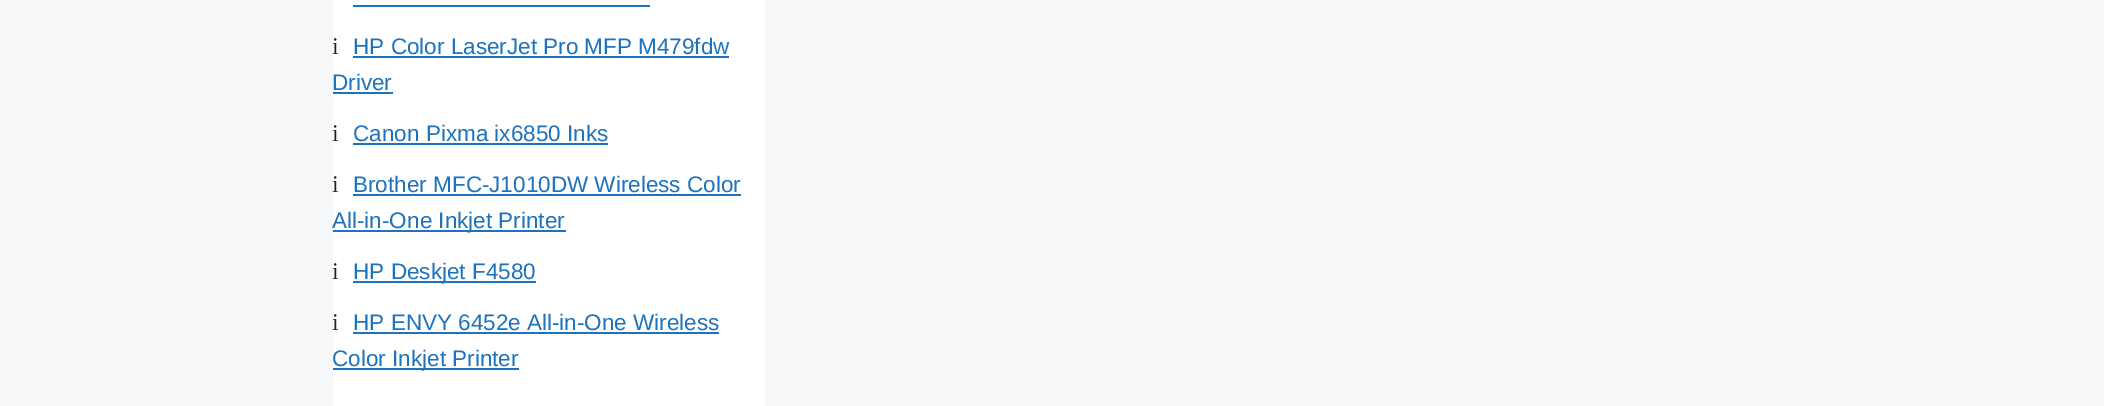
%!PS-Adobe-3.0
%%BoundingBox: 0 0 2104 406
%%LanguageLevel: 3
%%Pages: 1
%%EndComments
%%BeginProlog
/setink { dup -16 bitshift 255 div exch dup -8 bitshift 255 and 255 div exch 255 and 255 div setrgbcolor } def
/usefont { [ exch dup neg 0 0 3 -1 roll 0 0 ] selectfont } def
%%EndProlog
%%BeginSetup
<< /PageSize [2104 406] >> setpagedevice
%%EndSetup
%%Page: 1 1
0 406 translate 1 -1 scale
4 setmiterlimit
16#F7F8F9 setink
0 0 2104 406 rectfill
16#FFFFFF setink
333 0 432 406 rectfill
16#1E73BE setink
353 5 297 2 rectfill
/LiberationSerif-Regular 24 usefont
16#222222 setink
332 54 moveto (i) show
/LiberationSans-Regular 22.5 usefont
16#1E73BE setink
353 54 moveto (HP Color LaserJet Pro MFP M479fdw) show
353 56 376 2 rectfill
332 90 moveto (Driver) show
333 92 60 2 rectfill
/LiberationSerif-Regular 24 usefont
16#222222 setink
332 141 moveto (i) show
/LiberationSans-Regular 22.5 usefont
16#1E73BE setink
353 141 moveto (Canon Pixma ix6850 Inks) show
353 143 255 2 rectfill
/LiberationSerif-Regular 24 usefont
16#222222 setink
332 192 moveto (i) show
/LiberationSans-Regular 22.5 usefont
16#1E73BE setink
353 192 moveto (Brother MFC-J1010DW Wireless Color) show
353 194 388 2 rectfill
333 230 233 2 rectfill
332 228 moveto (All-in-One Inkjet Printer) show
/LiberationSerif-Regular 24 usefont
16#222222 setink
332 279 moveto (i) show
16#1E73BE setink
353 281 183 2 rectfill
/LiberationSans-Regular 22.5 usefont
353 279 moveto (HP Deskjet F4580) show
/LiberationSerif-Regular 24 usefont
16#222222 setink
332 330 moveto (i) show
/LiberationSans-Regular 22.5 usefont
16#1E73BE setink
353 330 moveto (HP ENVY 6452e All-in-One Wireless) show
353 332 366 2 rectfill
333 368 186 2 rectfill
332 366 moveto (Color Inkjet Printer) show
showpage
%%EOF
